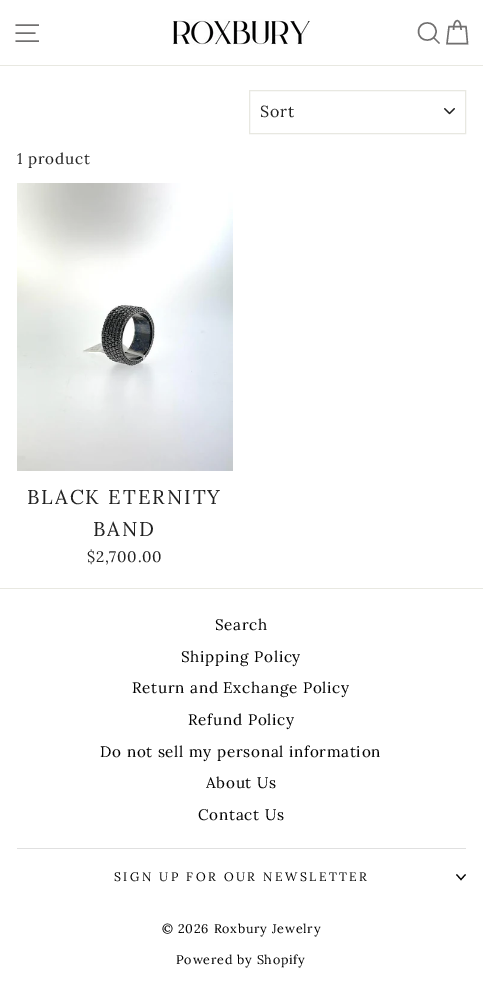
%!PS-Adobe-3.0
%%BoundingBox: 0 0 483 990
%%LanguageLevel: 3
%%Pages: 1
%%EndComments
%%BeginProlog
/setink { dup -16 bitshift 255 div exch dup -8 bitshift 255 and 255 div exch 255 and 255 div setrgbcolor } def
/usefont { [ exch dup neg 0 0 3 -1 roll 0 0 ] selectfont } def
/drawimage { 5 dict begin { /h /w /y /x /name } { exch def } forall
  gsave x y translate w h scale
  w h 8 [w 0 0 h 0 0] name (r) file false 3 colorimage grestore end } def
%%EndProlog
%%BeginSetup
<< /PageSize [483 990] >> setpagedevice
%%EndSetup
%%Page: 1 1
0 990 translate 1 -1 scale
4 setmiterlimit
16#FFFFFF setink
0 0 483 990 rectfill
16#E8E8E1 setink
0 65 483 1 rectfill
16#717070 setink
1.4 setlinewidth
15.5 25 moveto 39 25 lineto 15.5 33 moveto 35.5 33 lineto 15.5 41 moveto 39 41 lineto stroke
(img1.raw) 172 19 138 27 drawimage
436 31.5 moveto 436 43 418.5 43 418.5 31.5 curveto 418.5 20 436 20 436 31.5 curveto closepath 439.5 43.5 moveto 433.5 37.5 lineto 453.5 30 moveto 453.5 17.5 461 17.5 461 30 curveto 449 26.5 moveto 466 26.5 lineto 467.5 43.5 lineto 447 43.5 lineto closepath stroke
(img2.raw) 444 108 11 7 drawimage
16#E8E8E1 setink
1 setlinewidth
249.5 90.5 216 43 rectstroke
/Lora-Regular 16 usefont
16#212121 setink
260 117 moveto 1 0 (Sort) ashow
/Lora-Regular 15.25 usefont
17 164 moveto 0.75 0 (1 product) ashow
(img3.raw) 17 183 216 288 drawimage
/Lora-Regular 20 usefont
27 504 moveto 2 0 (BLACK ETERNITY) ashow
93 536 moveto 2 0 (BAND) ashow
/Lora-Regular 15.25 usefont
87 562 moveto 0.75 0 ($2,700.00) ashow
16#E8E8E1 setink
0 588 483 1 rectfill
16#000000 setink
215 630 moveto 0.75 0 (Search) ashow
181 662 moveto 0.75 0 (Shipping Policy) ashow
132 693 moveto 0.75 0 (Return and Exchange Policy) ashow
188 725 moveto 0.75 0 (Refund Policy) ashow
100 757 moveto 0.75 0 (Do not sell my personal information) ashow
206 788 moveto 0.75 0 (About Us) ashow
198 820 moveto 0.75 0 (Contact Us) ashow
16#E0E0E0 setink
17 848 449 1 rectfill
/Lora-Regular 12.25 usefont
16#000000 setink
114 881 moveto 2.45 0 (SIGN UP FOR OUR NEWSLETTER) ashow
1.1 setlinewidth
456.5 874.5 moveto 461 879.5 lineto 465.5 874.5 lineto stroke
/Lora-Regular 12.6 usefont
162 933 moveto 0.75 0 (© 2026 Roxbury Jewelry) ashow
176 964 moveto 0.75 0 (Powered by Shopify) ashow
showpage
%%EOF
